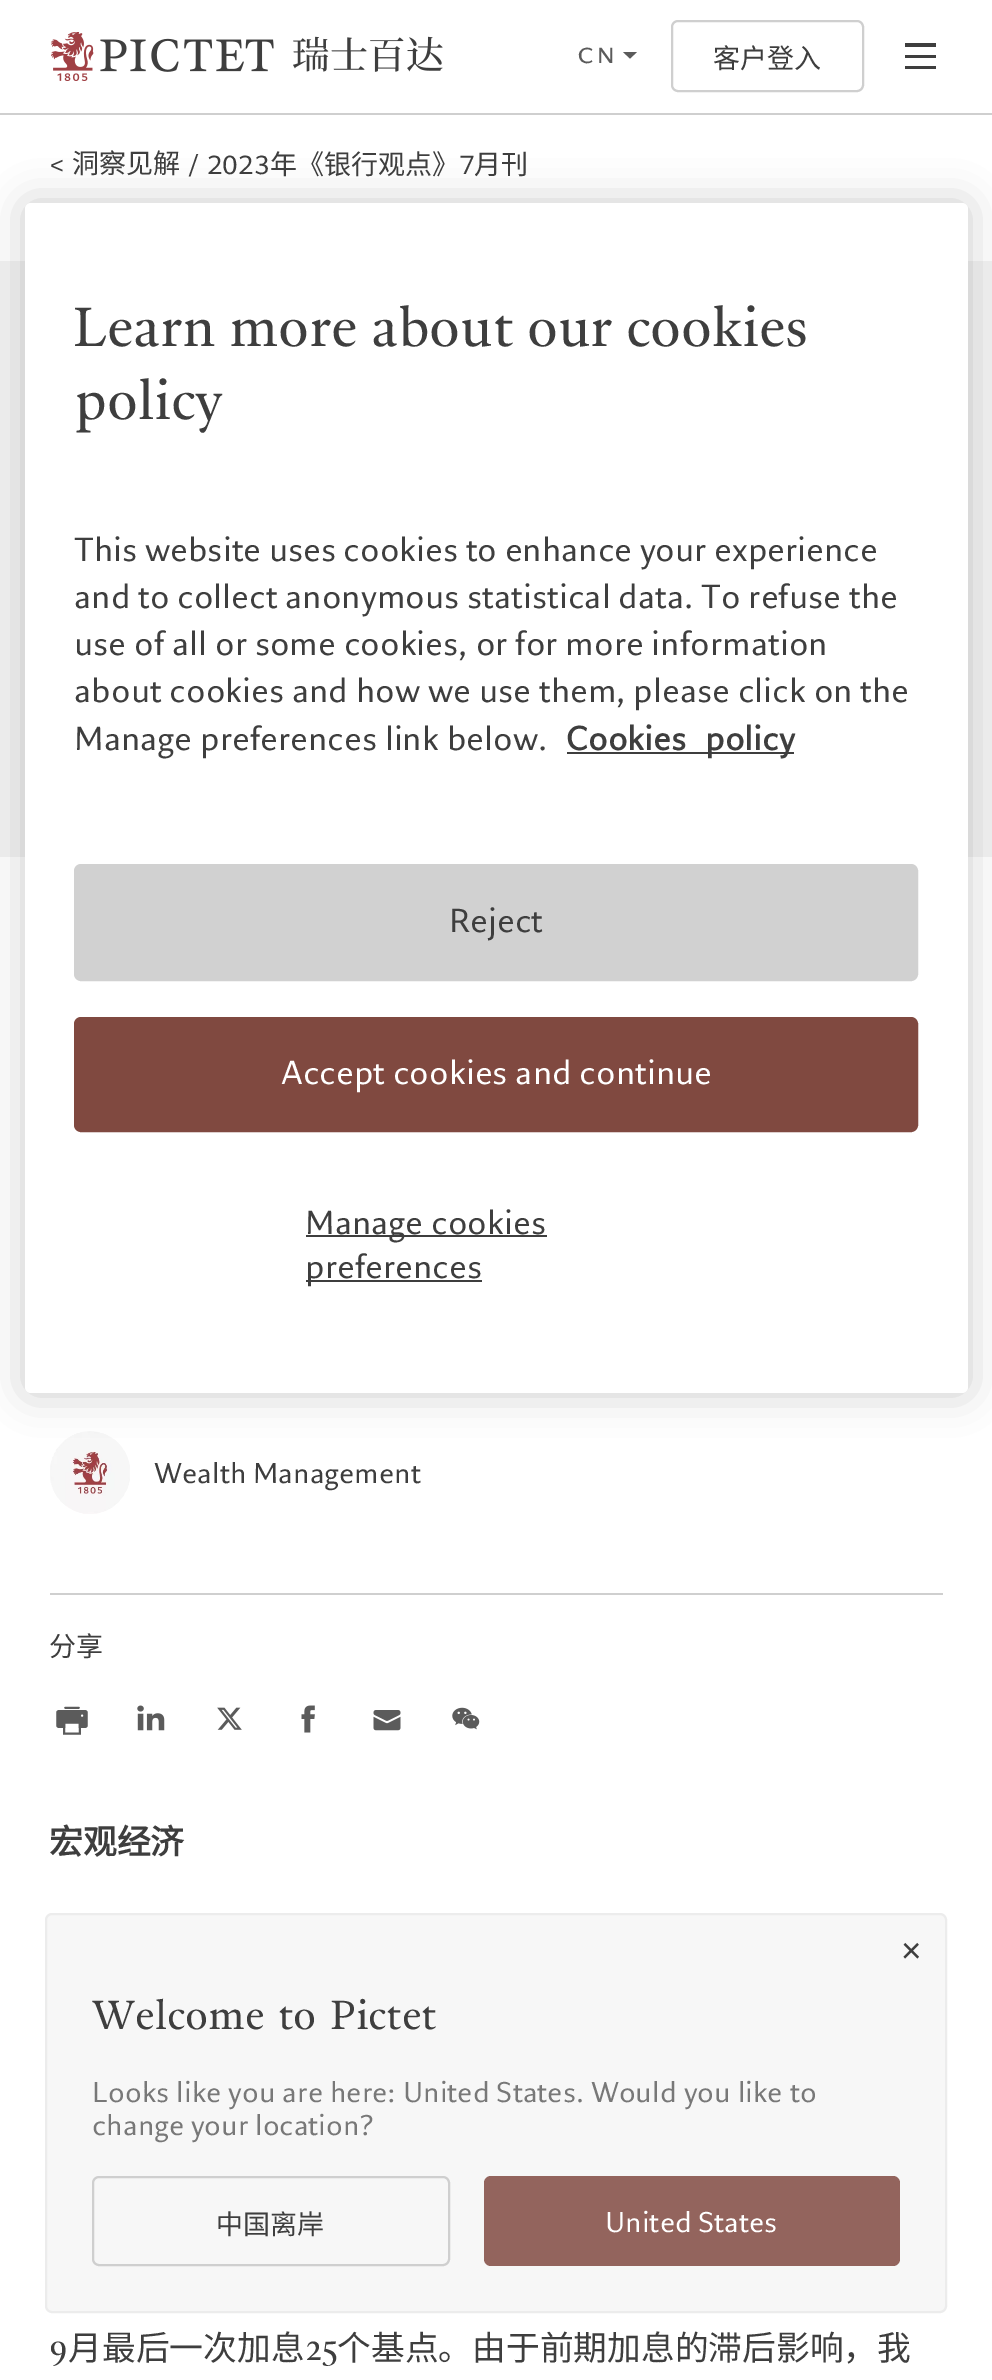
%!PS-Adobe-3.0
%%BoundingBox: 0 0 992 2380
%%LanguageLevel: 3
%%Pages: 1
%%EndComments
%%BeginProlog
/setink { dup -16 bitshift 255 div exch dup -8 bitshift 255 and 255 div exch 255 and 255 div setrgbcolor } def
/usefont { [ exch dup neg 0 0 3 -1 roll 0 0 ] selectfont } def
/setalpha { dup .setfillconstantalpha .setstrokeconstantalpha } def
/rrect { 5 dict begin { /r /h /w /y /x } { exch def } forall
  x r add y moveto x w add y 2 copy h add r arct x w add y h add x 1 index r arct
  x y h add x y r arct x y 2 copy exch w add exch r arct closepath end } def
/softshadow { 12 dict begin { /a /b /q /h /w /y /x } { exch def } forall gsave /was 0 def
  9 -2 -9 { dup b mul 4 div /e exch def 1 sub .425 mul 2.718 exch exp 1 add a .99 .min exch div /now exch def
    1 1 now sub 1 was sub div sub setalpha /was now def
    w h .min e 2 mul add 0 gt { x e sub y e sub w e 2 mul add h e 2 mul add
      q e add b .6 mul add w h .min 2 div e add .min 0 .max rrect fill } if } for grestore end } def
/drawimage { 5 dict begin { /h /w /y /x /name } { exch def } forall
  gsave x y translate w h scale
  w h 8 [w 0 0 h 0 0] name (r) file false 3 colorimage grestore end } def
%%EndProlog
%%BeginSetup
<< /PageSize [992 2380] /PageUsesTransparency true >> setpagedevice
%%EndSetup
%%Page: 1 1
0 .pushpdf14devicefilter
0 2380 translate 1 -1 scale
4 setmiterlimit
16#FFFFFF setink
0 0 992 2380 rectfill
16#CFCFCF setink
0 113 992 2 rectfill
(img1.raw) 50 32 44 49 drawimage
(img2.raw) 100 38 174 34 drawimage
(img3.raw) 293 36 150 36 drawimage
/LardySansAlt-Regular 27 usefont
16#5B5B5B setink
576 63 moveto (cn) show
623 52 moveto 637 52 lineto 630 58.5 lineto closepath fill
16#CFCFCF setink
2 setlinewidth
672 21 191 70 6 rrect stroke
/NotoSansCJKSC-Regular 27 usefont
16#3E3E3E setink
713 68 moveto (客户登入) show
[
    [905 43 31 4 16#3E3E3E]
    [905 55 31 3 16#3E3E3E]
    [905 66 31 3 16#3E3E3E]
] { aload pop setink rectfill } forall
/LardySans-Regular 27 usefont
49 173 moveto (<) show
/NotoSansCJKSC-Regular 27 usefont
72 173 moveto (洞察见解) show
/LardySans-Regular 27 usefont
187 174 moveto (/ 2023) show
/NotoSansCJKSC-Regular 27 usefont
270 174 moveto (年《银行观点》) show
/LardySans-Regular 27 usefont
459 174 moveto (7) show
/NotoSansCJKSC-Regular 27 usefont
474 174 moveto (月刊) show
16#F3F3F3 setink
0 261 992 596 rectfill
(img4.raw) 50 1431 80 83 drawimage
/LardySans-Regular 27 usefont
16#3E3E3E setink
154 1483 moveto (Wealth Management) show
16#CFCFCF setink
50 1593 893 2 rectfill
/NotoSansCJKSC-Regular 27 usefont
16#3E3E3E setink
49 1656 moveto (分享) show
(img5.raw) 56 1706 32 29 drawimage
(img6.raw) 137 1705 28 26 drawimage
(img7.raw) 217 1707 25 23 drawimage
(img8.raw) 301 1705 14 28 drawimage
(img9.raw) 373 1710 28 21 drawimage
(img10.raw) 452 1707 28 23 drawimage
/NotoSansCJKSC-Bold 33.75 usefont
49 1854 moveto (宏观经济) show
/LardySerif-Regular 33.75 usefont
49 2360 moveto (9) show
/NotoSansCJKSC-Regular 33.75 usefont
68 2360 moveto (月最后一次加息) show
/LardySerif-Regular 33.75 usefont
305 2360 moveto (25) show
/NotoSansCJKSC-Regular 33.75 usefont
337 2360 moveto (个基点。由于前期加息的滞后影响，我) show
16#000000 setink
25 203 943 1190 6 20 0.2 softshadow
16#FFFFFF setink
25 203 943 1190 6 rrect fill
/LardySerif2-Regular 51.75 usefont
16#3E3E3E setink
74 346 moveto -0.5 0 32 (Learn more about our cookies) widthshow
74 419 moveto (policy) show
/LardySans-Regular 31.5 usefont
74 561 moveto -0.25 0 32 (This website uses cookies to enhance your experience) widthshow
[
    [(and to collect anonymous statistical data. To refuse the) 74 608]
    [(use of all or some cookies, or for more information) 74 655]
    [(about cookies and how we use them, please click on the) 74 702]
    [(Manage preferences link below.) 74 750]
] { aload pop moveto show } forall
567 752 227 2 rectfill
/LardySans-Bold 31.5 usefont
566 750 moveto 11 0 32 (Cookies policy) widthshow
16#D1D1D1 setink
75 865 842 115 6 rrect gsave fill grestore
stroke
/LardySans-Regular 31.5 usefont
16#3E3E3E setink
449 932 moveto (Reject) show
16#804940 setink
75 1018 842 113 6 rrect gsave fill grestore
stroke
16#FFFFFF setink
281 1084 moveto (Accept cookies and continue) show
16#3E3E3E setink
306 1235 241 2 rectfill
305 1234 moveto (Manage cookies) show
306 1280 176 2 rectfill
305 1278 moveto (preferences) show
16#F7F7F7 setink
46 1914 900 398 6 rrect gsave fill grestore
16#ECECEC setink
stroke
(img11.raw) 903 1942 16 17 drawimage
/LardySerif-Regular 38.25 usefont
16#3E3E3E setink
92 2029 moveto 4 0 32 (Welcome to Pictet) widthshow
/LardySans-Regular 27 usefont
16#787878 setink
92 2102 moveto 0.25 0 32 (Looks like you are here: United States. Would you like to) widthshow
92 2135 moveto (change your location?) show
16#CFCFCF setink
93 2177 356 88 6 rrect stroke
/NotoSansCJKSC-Regular 27 usefont
16#3E3E3E setink
216 2234 moveto (中国离岸) show
16#93645D setink
484 2176 416 90 7 rrect fill
/LardySans-Regular 27 usefont
16#FFFFFF setink
605 2232 moveto (United States) show
.poppdf14devicefilter showpage
%%EOF
